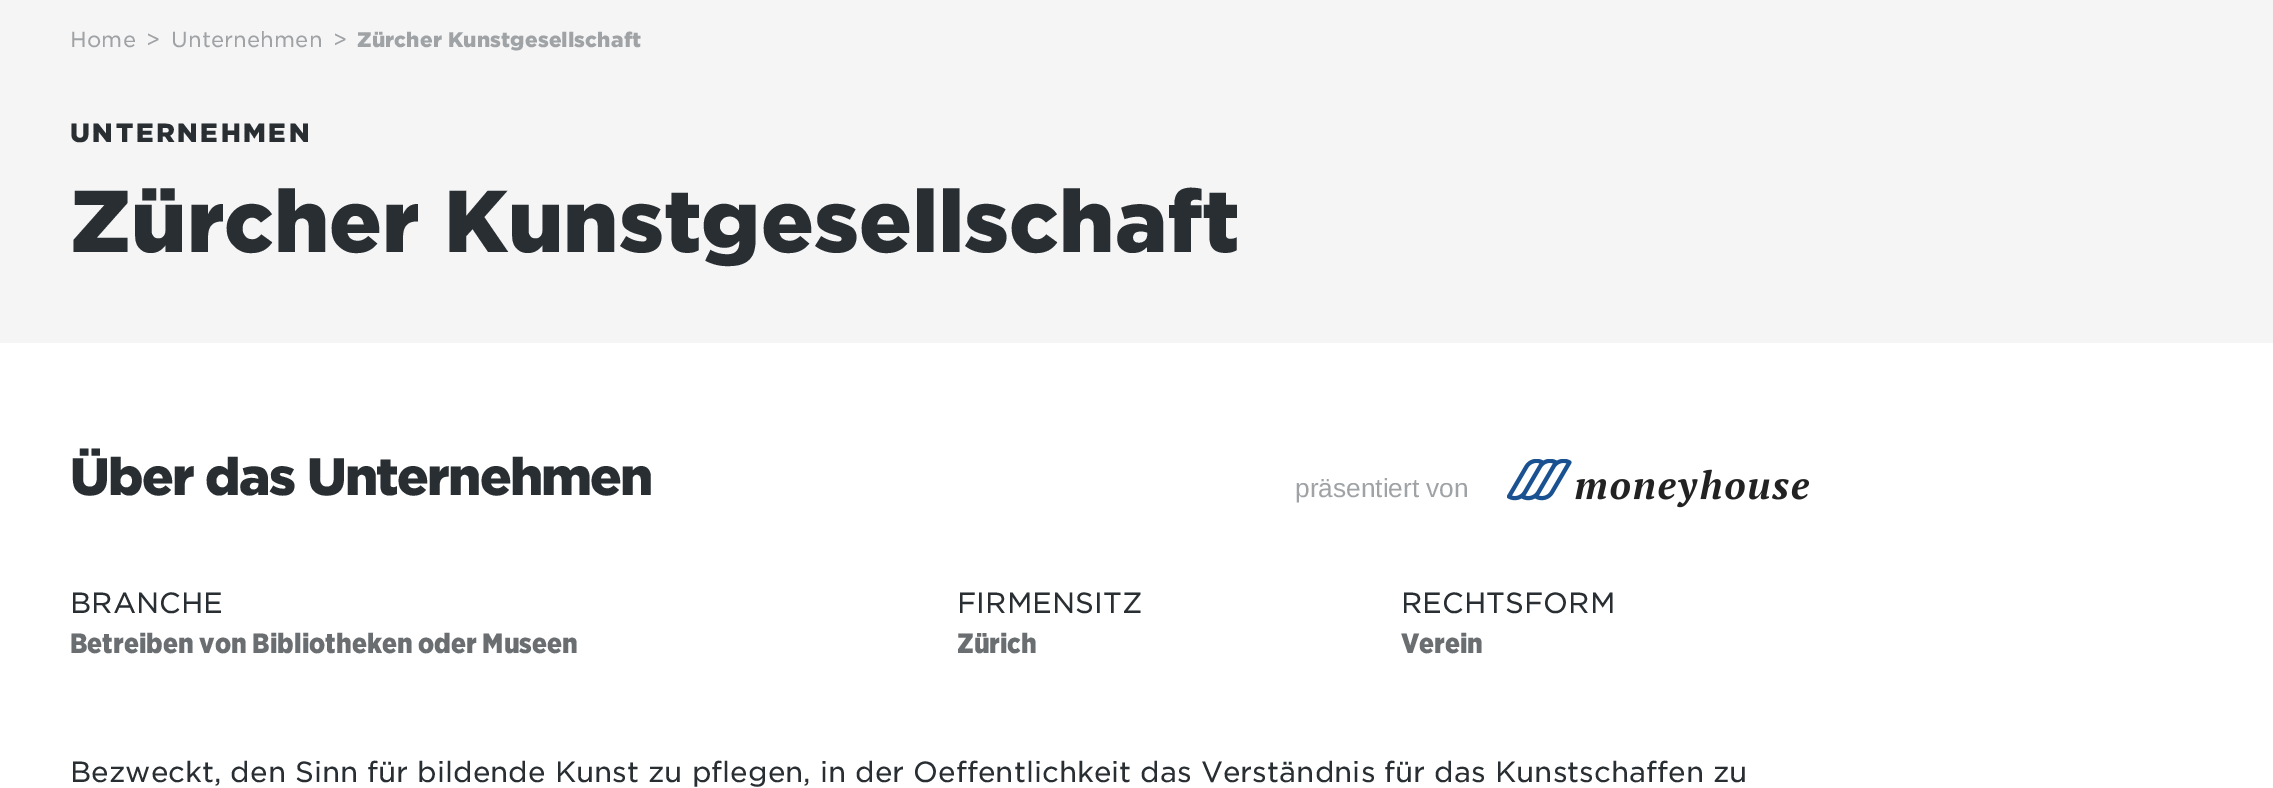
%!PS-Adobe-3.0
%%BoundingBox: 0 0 2273 788
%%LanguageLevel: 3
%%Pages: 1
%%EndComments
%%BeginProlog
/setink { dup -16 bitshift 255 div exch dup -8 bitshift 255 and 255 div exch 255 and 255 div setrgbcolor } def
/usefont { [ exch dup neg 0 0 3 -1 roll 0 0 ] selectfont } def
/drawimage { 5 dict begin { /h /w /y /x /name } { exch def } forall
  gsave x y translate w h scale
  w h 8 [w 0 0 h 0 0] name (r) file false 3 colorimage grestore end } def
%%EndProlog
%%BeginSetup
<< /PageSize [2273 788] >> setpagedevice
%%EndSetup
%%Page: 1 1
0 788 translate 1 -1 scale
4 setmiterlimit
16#FFFFFF setink
0 0 2273 788 rectfill
16#F5F5F5 setink
0 0 2273 343 rectfill
/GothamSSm-Regular 21 usefont
16#A0A3A6 setink
70 47 moveto 0.15 0 (Home) ashow
146 47 moveto 0.15 0 (>) ashow
171 47 moveto 0.15 0 (Unternehmen) ashow
333 47 moveto 0.15 0 (>) ashow
/Gotham-Black 21 usefont
357 47 moveto 0.15 0 (Zürcher Kunstgesellschaft) ashow
/Gotham-Black 26.25 usefont
16#292E32 setink
70 142 moveto 2.6 0 (UNTERNEHMEN) ashow
/Gotham-Black 87.5 usefont
70 252 moveto (Zürcher Kunstgesellschaft) show
/Gotham-Black 52.5 usefont
70 495 moveto -1.75 0 (Über das Unternehmen) ashow
/LiberationSans-Regular 26.25 usefont
16#A0A3A6 setink
1295 497 moveto (präsentiert von) show
(img1.raw) 1507 459 302 49 drawimage
/GothamSSm-Regular 28 usefont
16#292E32 setink
70 613 moveto (BRANCHE) show
/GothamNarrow-Black 28 usefont
16#6A6E71 setink
70 653 moveto (Betreiben von Bibliotheken oder Museen) show
/GothamSSm-Regular 28 usefont
16#292E32 setink
957 613 moveto (FIRMENSITZ) show
/GothamNarrow-Black 28 usefont
16#6A6E71 setink
957 653 moveto (Zürich) show
/GothamSSm-Regular 28 usefont
16#292E32 setink
1401 613 moveto (RECHTSFORM) show
/GothamNarrow-Black 28 usefont
16#6A6E71 setink
1401 653 moveto (Verein) show
/GothamSSm-Regular 28 usefont
16#292E32 setink
70 782 moveto (Bezweckt, den Sinn für bildende Kunst zu pflegen, in der Oeffentlichkeit das Verständnis für das Kunstschaffen zu) show
showpage
%%EOF
